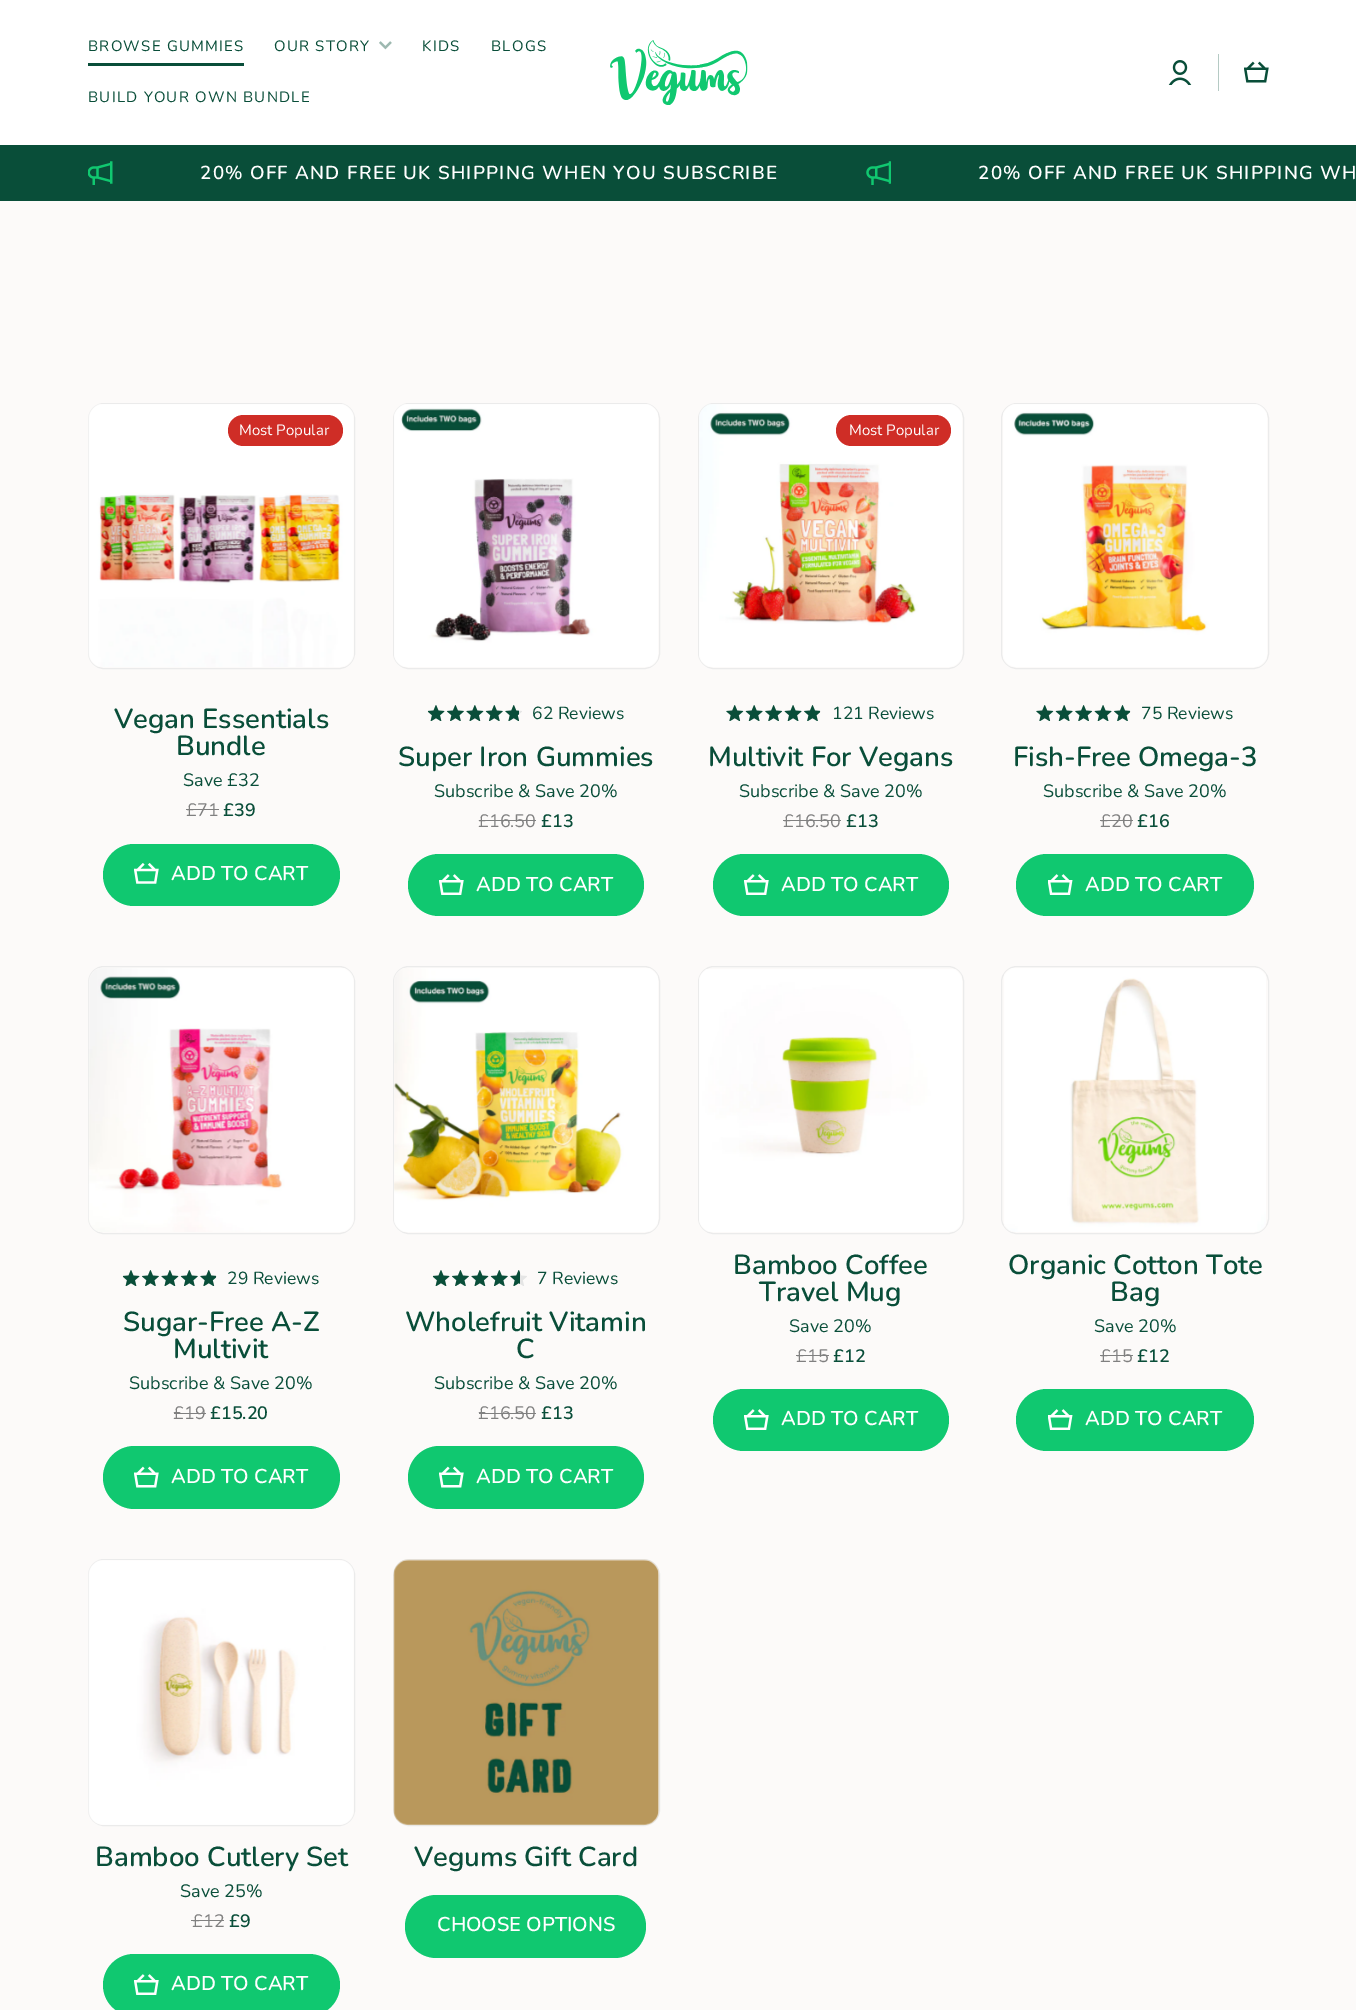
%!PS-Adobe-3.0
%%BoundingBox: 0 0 1356 2010
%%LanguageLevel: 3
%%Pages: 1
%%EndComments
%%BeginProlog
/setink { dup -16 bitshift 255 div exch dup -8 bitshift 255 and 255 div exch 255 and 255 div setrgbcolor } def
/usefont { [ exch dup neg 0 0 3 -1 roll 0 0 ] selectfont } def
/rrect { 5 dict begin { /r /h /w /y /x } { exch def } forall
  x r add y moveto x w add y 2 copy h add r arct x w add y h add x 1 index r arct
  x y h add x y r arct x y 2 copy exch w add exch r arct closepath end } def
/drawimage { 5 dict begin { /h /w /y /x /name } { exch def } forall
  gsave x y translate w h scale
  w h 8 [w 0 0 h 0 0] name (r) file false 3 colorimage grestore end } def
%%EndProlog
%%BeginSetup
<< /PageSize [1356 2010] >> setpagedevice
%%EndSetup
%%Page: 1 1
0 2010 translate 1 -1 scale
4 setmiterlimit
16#FFFFFF setink
0 0 1356 2010 rectfill
/Nunito-Regular 15 usefont
16#094E39 setink
88 51 moveto 1.25 0 (BROWSE GUMMIES) ashow
88 63 156 3 rectfill
274 51 moveto 1.25 0 (OUR STORY) ashow
(img1.raw) 379 41 13 9 drawimage
422 51 moveto 1.25 0 (KIDS) ashow
491 51 moveto 1.25 0 (BLOGS) ashow
88 102 moveto 1.25 0 (BUILD YOUR OWN BUNDLE) ashow
(img2.raw) 610 40 138 65 drawimage
(img3.raw) 1168 60 24 25 drawimage
16#B5CAC4 setink
1218 54 1 37 rectfill
(img4.raw) 1244 61 25 22 drawimage
16#094E39 setink
0 145 1356 56 rectfill
(img5.raw) 88 161 25 24 drawimage
/Nunito-SemiBold 18.75 usefont
16#FFFFFF setink
200 179 moveto 1.25 0 (20% OFF AND FREE UK SHIPPING WHEN YOU SUBSCRIBE) ashow
(img6.raw) 866 161 25 24 drawimage
978 179 moveto 1.25 0 (20% OFF AND FREE UK SHIPPING WH) ashow
16#FCFAF9 setink
0 201 1356 1809 rectfill
16#EBEBEB setink
88.5 403.5 266 265 15.5 rrect stroke
(img7.raw) 88 404 266 263 drawimage
16#CF2D26 setink
228 415 115 31 15.5 rrect fill
/Nunito-Regular 15 usefont
16#FFFFFF setink
239 435 moveto (Most Popular) show
/Nunito-SemiBold 27.5 usefont
16#094E39 setink
114 728 moveto (Vegan Essentials) show
176 755 moveto (Bundle) show
/Nunito-Regular 18 usefont
183 786 moveto (Save £32) show
16#808080 setink
186 816 moveto (£71) show
186 809 33 1 rectfill
/Nunito-SemiBold 18 usefont
16#094E39 setink
223 816 moveto (£39) show
16#10C870 setink
103 844 237 62 31 rrect fill
(img8.raw) 134 863 25 21 drawimage
/Nunito-SemiBold 20 usefont
16#FFFFFF setink
171 880 moveto (ADD TO CART) show
16#EBEBEB setink
393.5 403.5 266 265 15.5 rrect stroke
(img9.raw) 394 404 264 263 drawimage
(img10.raw) 427 705 95 16 drawimage
(img11.raw) 428 705 91 16 drawimage
/Nunito-Regular 17.5 usefont
16#094E39 setink
532 719 moveto (62 Reviews) show
/Nunito-SemiBold 27.5 usefont
398 766 moveto (Super Iron Gummies) show
/Nunito-Regular 18 usefont
434 797 moveto (Subscribe & Save 20%) show
16#808080 setink
478 827 moveto (£16.50) show
479 820 57 1 rectfill
/Nunito-SemiBold 18 usefont
16#094E39 setink
541 827 moveto (£13) show
16#10C870 setink
408 854 236 62 31 rrect fill
(img12.raw) 439 874 25 21 drawimage
/Nunito-SemiBold 20 usefont
16#FFFFFF setink
476 891 moveto (ADD TO CART) show
16#EBEBEB setink
698.5 403.5 265 265 15.5 rrect stroke
(img13.raw) 699 404 263 263 drawimage
16#CF2D26 setink
836 415 115 31 15.5 rrect fill
/Nunito-Regular 15 usefont
16#FFFFFF setink
849 435 moveto (Most Popular) show
(img14.raw) 726 705 95 16 drawimage
(img15.raw) 726 705 94 16 drawimage
/Nunito-Regular 17.5 usefont
16#094E39 setink
832 719 moveto (121 Reviews) show
/Nunito-SemiBold 27.5 usefont
708 766 moveto (Multivit For Vegans) show
/Nunito-Regular 18 usefont
739 797 moveto (Subscribe & Save 20%) show
16#808080 setink
783 827 moveto (£16.50) show
783 820 58 1 rectfill
/Nunito-SemiBold 18 usefont
16#094E39 setink
846 827 moveto (£13) show
16#10C870 setink
713 854 236 62 31 rrect fill
(img12.raw) 744 874 25 21 drawimage
/Nunito-SemiBold 20 usefont
16#FFFFFF setink
781 891 moveto (ADD TO CART) show
16#EBEBEB setink
1001.5 403.5 267 265 15.5 rrect stroke
(img16.raw) 1003 404 264 263 drawimage
(img14.raw) 1036 705 95 16 drawimage
(img15.raw) 1036 705 94 16 drawimage
/Nunito-Regular 17.5 usefont
16#094E39 setink
1141 719 moveto (75 Reviews) show
/Nunito-SemiBold 27.5 usefont
1013 766 moveto (Fish-Free Omega-3) show
/Nunito-Regular 18 usefont
1043 797 moveto (Subscribe & Save 20%) show
16#808080 setink
1100 827 moveto (£20) show
1100 820 33 1 rectfill
/Nunito-SemiBold 18 usefont
16#094E39 setink
1137 827 moveto (£16) show
16#10C870 setink
1016 854 238 62 31 rrect fill
(img17.raw) 1048 874 25 21 drawimage
/Nunito-SemiBold 20 usefont
16#FFFFFF setink
1085 891 moveto (ADD TO CART) show
16#EBEBEB setink
88.5 966.5 266 267 15.5 rrect stroke
(img18.raw) 88 968 266 264 drawimage
(img10.raw) 122 1270 95 16 drawimage
(img19.raw) 123 1270 93 16 drawimage
/Nunito-Regular 17.5 usefont
16#094E39 setink
227 1284 moveto (29 Reviews) show
/Nunito-SemiBold 27.5 usefont
123 1331 moveto (Sugar-Free A-Z) show
173 1358 moveto (Multivit) show
/Nunito-Regular 18 usefont
129 1389 moveto (Subscribe & Save 20%) show
16#808080 setink
173 1419 moveto (£19) show
174 1413 32 1 rectfill
/Nunito-SemiBold 18 usefont
16#094E39 setink
210 1419 moveto (£15.20) show
16#10C870 setink
103 1446 237 63 31.5 rrect fill
(img20.raw) 134 1466 25 22 drawimage
/Nunito-SemiBold 20 usefont
16#FFFFFF setink
171 1483 moveto (ADD TO CART) show
16#EBEBEB setink
393.5 966.5 266 267 15.5 rrect stroke
(img21.raw) 394 968 264 264 drawimage
(img10.raw) 432 1270 95 16 drawimage
(img22.raw) 433 1270 87 16 drawimage
/Nunito-Regular 17.5 usefont
16#094E39 setink
537 1284 moveto (7 Reviews) show
/Nunito-SemiBold 27.5 usefont
405 1331 moveto (Wholefruit Vitamin) show
516 1358 moveto (C) show
/Nunito-Regular 18 usefont
434 1389 moveto (Subscribe & Save 20%) show
16#808080 setink
478 1419 moveto (£16.50) show
479 1413 57 1 rectfill
/Nunito-SemiBold 18 usefont
16#094E39 setink
541 1419 moveto (£13) show
16#10C870 setink
408 1446 236 63 31.5 rrect fill
(img20.raw) 439 1466 25 22 drawimage
/Nunito-SemiBold 20 usefont
16#FFFFFF setink
476 1483 moveto (ADD TO CART) show
16#EBEBEB setink
698.5 966.5 265 267 15.5 rrect stroke
(img23.raw) 699 969 263 263 drawimage
/Nunito-SemiBold 27.5 usefont
16#094E39 setink
733 1274 moveto (Bamboo Coffee) show
759 1301 moveto (Travel Mug) show
/Nunito-Regular 18 usefont
789 1332 moveto (Save 20%) show
16#808080 setink
796 1362 moveto (£15) show
796 1355 33 1 rectfill
/Nunito-SemiBold 18 usefont
16#094E39 setink
833 1362 moveto (£12) show
16#10C870 setink
713 1389 236 62 31 rrect fill
(img12.raw) 744 1409 25 21 drawimage
/Nunito-SemiBold 20 usefont
16#FFFFFF setink
781 1425 moveto (ADD TO CART) show
16#EBEBEB setink
1001.5 966.5 267 267 15.5 rrect stroke
(img24.raw) 1004 968 262 264 drawimage
/Nunito-SemiBold 27.5 usefont
16#094E39 setink
1008 1274 moveto (Organic Cotton Tote) show
1110 1301 moveto (Bag) show
/Nunito-Regular 18 usefont
1094 1332 moveto (Save 20%) show
16#808080 setink
1100 1362 moveto (£15) show
1100 1355 33 1 rectfill
/Nunito-SemiBold 18 usefont
16#094E39 setink
1137 1362 moveto (£12) show
16#10C870 setink
1016 1389 238 62 31 rrect fill
(img17.raw) 1048 1409 25 21 drawimage
/Nunito-SemiBold 20 usefont
16#FFFFFF setink
1085 1425 moveto (ADD TO CART) show
16#EBEBEB setink
88.5 1559.5 266 266 15.5 rrect stroke
(img25.raw) 88 1560 266 265 drawimage
/Nunito-SemiBold 27.5 usefont
16#094E39 setink
95 1866 moveto (Bamboo Cutlery Set) show
/Nunito-Regular 18 usefont
180 1897 moveto (Save 25%) show
16#808080 setink
192 1927 moveto (£12) show
191 1920 33 1 rectfill
/Nunito-SemiBold 18 usefont
16#094E39 setink
229 1927 moveto (£9) show
16#10C870 setink
103 1954 237 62 31 rrect fill
(img12.raw) 134 1974 25 21 drawimage
/Nunito-SemiBold 20 usefont
16#FFFFFF setink
171 1990 moveto (ADD TO CART) show
16#EBEBEB setink
393.5 1559.5 266 266 15.5 rrect stroke
(img26.raw) 393 1559 267 267 drawimage
/Nunito-SemiBold 27.5 usefont
16#094E39 setink
414 1866 moveto (Vegums Gift Card) show
16#10C870 setink
405 1895 241 63 31.5 rrect fill
/Nunito-SemiBold 20 usefont
16#FFFFFF setink
437 1931 moveto (CHOOSE OPTIONS) show
showpage
%%EOF
